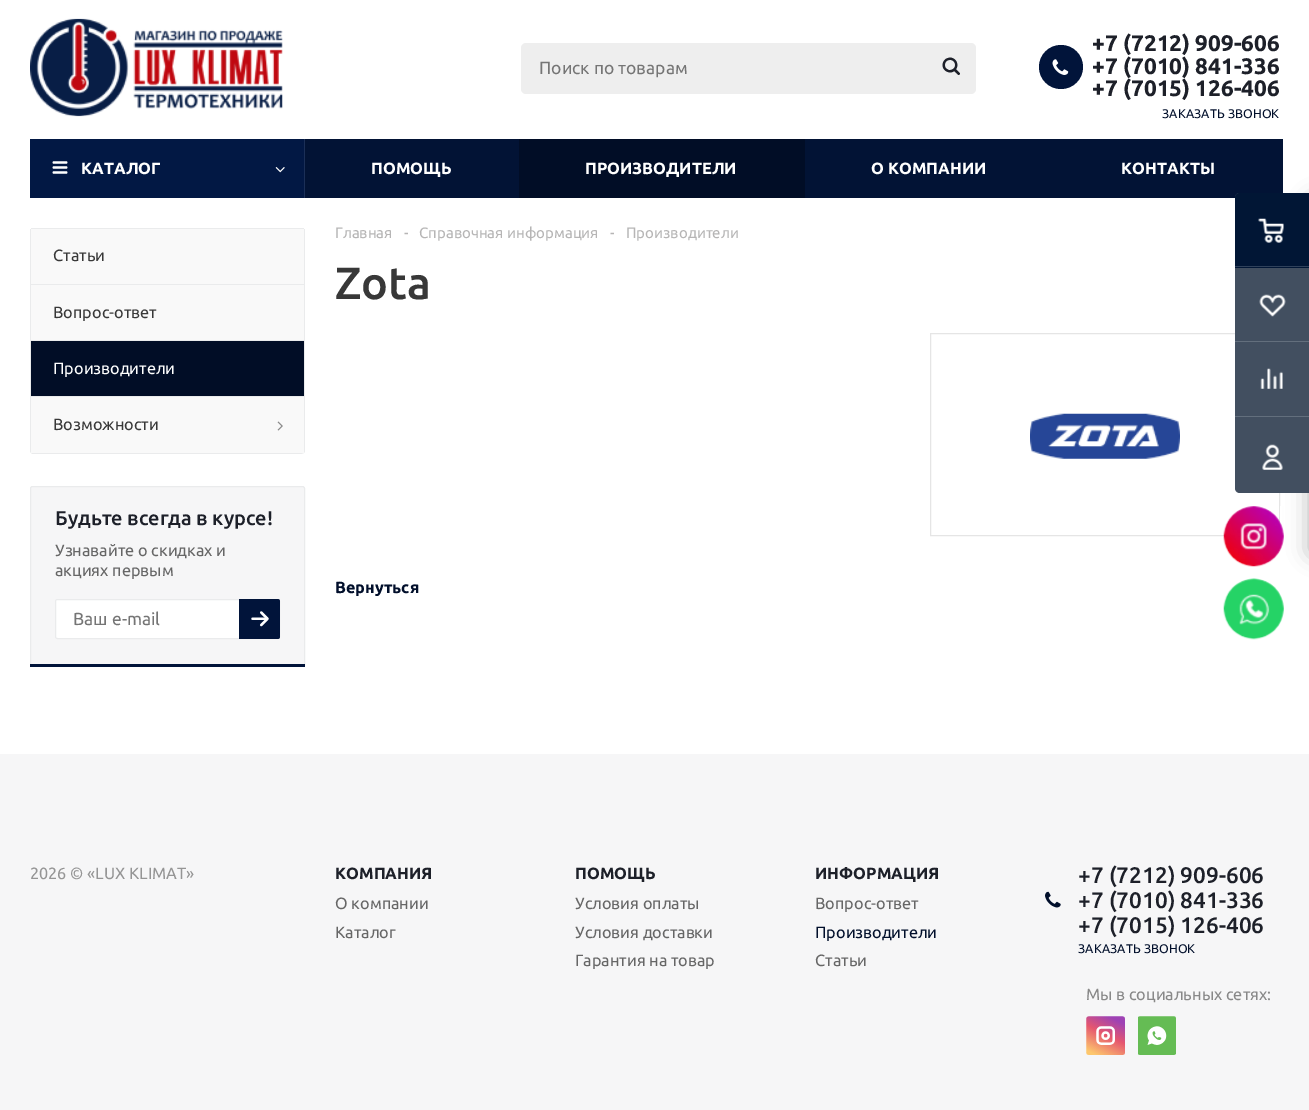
%!PS-Adobe-3.0
%%BoundingBox: 0 0 1309 1110
%%LanguageLevel: 3
%%Pages: 1
%%EndComments
%%BeginProlog
/setink { dup -16 bitshift 255 div exch dup -8 bitshift 255 and 255 div exch 255 and 255 div setrgbcolor } def
/usefont { [ exch dup neg 0 0 3 -1 roll 0 0 ] selectfont } def
/setalpha { dup .setfillconstantalpha .setstrokeconstantalpha } def
/disc { newpath 0 360 arc closepath } def
/rrect { 5 dict begin { /r /h /w /y /x } { exch def } forall
  x r add y moveto x w add y 2 copy h add r arct x w add y h add x 1 index r arct
  x y h add x y r arct x y 2 copy exch w add exch r arct closepath end } def
/softshadow { 12 dict begin { /a /b /q /h /w /y /x } { exch def } forall gsave /was 0 def
  9 -2 -9 { dup b mul 4 div /e exch def 1 sub .425 mul 2.718 exch exp 1 add a .99 .min exch div /now exch def
    1 1 now sub 1 was sub div sub setalpha /was now def
    w h .min e 2 mul add 0 gt { x e sub y e sub w e 2 mul add h e 2 mul add
      q e add b .6 mul add w h .min 2 div e add .min 0 .max rrect fill } if } for grestore end } def
/drawimage { 5 dict begin { /h /w /y /x /name } { exch def } forall
  gsave x y translate w h scale
  w h 8 [w 0 0 h 0 0] name (r) file false 3 colorimage grestore end } def
%%EndProlog
%%BeginSetup
<< /PageSize [1309 1110] /PageUsesTransparency true >> setpagedevice
%%EndSetup
%%Page: 1 1
0 .pushpdf14devicefilter
0 1110 translate 1 -1 scale
4 setmiterlimit
16#F6F6F7 setink
0 0 1309 1110 rectfill
16#FFFFFF setink
0 0 1309 754 rectfill
(img1.raw) 30 18 253 99 drawimage
16#EEEEEE setink
521 43 455 51 5 rrect fill
/Ubuntu-Regular 17.5 usefont
16#757575 setink
539 74 moveto (Поиск по товарам) show
(img2.raw) 942 57 18 18 drawimage
16#01143A setink
1061 67 22 disc fill
(img3.raw) 1052 59 17 16 drawimage
/Ubuntu-Bold 22.5 usefont
16#1D2029 setink
[
    [(+7 \(7212\) 909-606) 1092 51]
    [(+7 \(7010\) 841-336) 1092 74]
    [(+7 \(7015\) 126-406) 1092 96]
] { aload pop moveto show } forall
/Ubuntu-Regular 12.5 usefont
16#010F2B setink
1162 118 moveto 0.1 0 (ЗАКАЗАТЬ ЗВОНОК) ashow
16#021335 setink
305 139 978 59 rectfill
16#E5E5E5 setink
930.5 333.5 349 202 rectstroke
16#2C2C2C setink
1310 200 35 354 2.5 11 0.4 softshadow
16#424F60 setink
1240 193 moveto 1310 193 lineto 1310 493 lineto 1240 493 lineto 1237 493 1235 491 1235 488 curveto 1235 198 lineto 1235 195 1237 193 1240 193 curveto closepath fill
16#011635 setink
1240 193 moveto 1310 193 lineto 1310 268 lineto 1235 268 lineto 1235 198 lineto 1235 195 1237 193 1240 193 curveto closepath fill
(img4.raw) 1258 218 26 25 drawimage
16#2F415B setink
1235 266 74 1 rectfill
(img5.raw) 1259 294 27 23 drawimage
16#636F7D setink
1235 341 74 1 rectfill
(img6.raw) 1260 368 23 21 drawimage
1235 416 74 1 rectfill
(img7.raw) 1262 444 21 26 drawimage
16#021844 setink
30 139 274 59 rectfill
(img8.raw) 52 161 16 13 drawimage
/Ubuntu-Bold 16.25 usefont
16#FFFFFF setink
81 174 moveto (КАТАЛОГ) show
16#1B2F57 setink
304 139 1 59 rectfill
(img9.raw) 275 167 10 6 drawimage
16#FFFFFF setink
371 174 moveto (ПОМОЩЬ) show
16#010D26 setink
519 139 286 59 rectfill
16#FFFFFF setink
[
    [(ПРОИЗВОДИТЕЛИ) 585 174]
    [(О КОМПАНИИ) 871 174]
    [(КОНТАКТЫ) 1121 174]
] { aload pop moveto show } forall
16#F9F9F9 setink
31 229 273 55 rectfill
gsave
30 228 275 226 4 rrect clip newpath
[
    [30 228 275 1 16#EAEBEC]
    [304 228 1 56 16#EAEBEC]
    [30 228 1 56 16#EAEBEC]
] { aload pop setink rectfill } forall
grestore
/Ubuntu-Regular 16.25 usefont
16#383838 setink
53 261 moveto (Статьи) show
[
    [31 285 273 55 16#F9F9F9]
    [30 284 275 1 16#EAEBEC]
    [304 284 1 56 16#EAEBEC]
    [30 284 1 56 16#EAEBEC]
] { aload pop setink rectfill } forall
16#383838 setink
53 318 moveto (Вопрос-ответ) show
[
    [31 341 273 55 16#010D26]
    [30 340 275 1 16#EAEBEC]
    [304 340 1 56 16#EAEBEC]
    [30 340 1 56 16#EAEBEC]
] { aload pop setink rectfill } forall
16#FFFFFF setink
53 374 moveto (Производители) show
16#F9F9F9 setink
30 396 moveto 305 396 lineto 305 450 lineto 305 452 303 454 301 454 curveto 34 454 lineto 32 454 30 452 30 450 curveto closepath fill
16#EAEBEC setink
31 397 moveto 304 397 lineto 304 453 lineto 305 452 305 451 305 450 curveto 305 396 lineto 30 396 lineto 30 450 lineto 30 451 30 452 31 453 curveto closepath 301 454 moveto 304 453 lineto 31 453 lineto 32 454 33 454 34 454 curveto closepath eofill
16#383838 setink
53 430 moveto (Возможности) show
(img10.raw) 277 421 6 10 drawimage
16#F6F6F7 setink
32.5 486.5 moveto 302.5 486.5 lineto 303.5 486.5 304.5 487.5 304.5 488.5 curveto 304.5 665.5 lineto 30.5 665.5 lineto 30.5 488.5 lineto 30.5 487.5 31.5 486.5 32.5 486.5 curveto closepath gsave fill grestore
16#EAEBEC setink
stroke
/Ubuntu-Medium 20 usefont
16#1D2029 setink
55 525 moveto (Будьте всегда в курсе!) show
/Ubuntu-Regular 16.25 usefont
16#666666 setink
55 556 moveto (Узнавайте о скидках и) show
55 576 moveto (акциях первым) show
16#FFFFFF setink
55.5 599.5 224 39 2 rrect gsave fill grestore
16#EAEBEC setink
stroke
/Ubuntu-Regular 17.5 usefont
16#757575 setink
73 625 moveto (Ваш e-mail) show
16#01143A setink
239 599 moveto 277.5 599 lineto 279 599 280 600 280 601.5 curveto 280 636.5 lineto 280 638 279 639 277.5 639 curveto 239 639 lineto closepath fill
(img11.raw) 251 611 18 16 drawimage
30 664 275 3 rectfill
/Ubuntu-Regular 15 usefont
16#B6B5B5 setink
[
    [(Главная) 335 238]
    [(-) 404 238]
    [(Справочная информация) 419 238]
    [(-) 610 238]
    [(Производители) 626 238]
] { aload pop moveto show } forall
/Ubuntu-Medium 45 usefont
16#383838 setink
335 299 moveto (Zota) show
(img12.raw) 1030 413 150 46 drawimage
/Ubuntu-Bold 16.25 usefont
16#010F2B setink
335 593 moveto (Вернуться) show
(img13.raw) 1223 506 61 61 drawimage
(img14.raw) 1223 578 61 62 drawimage
/Ubuntu-Regular 16.25 usefont
16#959595 setink
30 879 moveto (2026 © «LUX KLIMAT») show
/Ubuntu-Bold 16.25 usefont
16#1D2029 setink
[
    [(КОМПАНИЯ) 335 879]
    [(ПОМОЩЬ) 575 879]
    [(ИНФОРМАЦИЯ) 815 879]
] { aload pop moveto show } forall
/Ubuntu-Regular 16.25 usefont
16#666666 setink
[
    [(О компании) 335 909]
    [(Каталог) 335 938]
    [(Условия оплаты) 575 909]
    [(Условия доставки) 575 938]
    [(Гарантия на товар) 575 966]
    [(Вопрос-ответ) 815 909]
] { aload pop moveto show } forall
16#010F2B setink
815 938 moveto (Производители) show
16#666666 setink
815 966 moveto (Статьи) show
(img15.raw) 1045 891 16 17 drawimage
/Ubuntu-Medium 22.5 usefont
16#1D2029 setink
[
    [(+7 \(7212\) 909-606) 1078 883]
    [(+7 \(7010\) 841-336) 1078 908]
    [(+7 \(7015\) 126-406) 1078 933]
] { aload pop moveto show } forall
/Ubuntu-Regular 12.5 usefont
16#010F2B setink
1078 953 moveto 0.1 0 (ЗАКАЗАТЬ ЗВОНОК) ashow
/Ubuntu-Regular 16.25 usefont
16#888888 setink
1086 1000 moveto (Мы в социальных сетях:) show
(img16.raw) 1086 1016 39 39 drawimage
(img17.raw) 1138 1016 38 39 drawimage
.poppdf14devicefilter showpage
%%EOF
